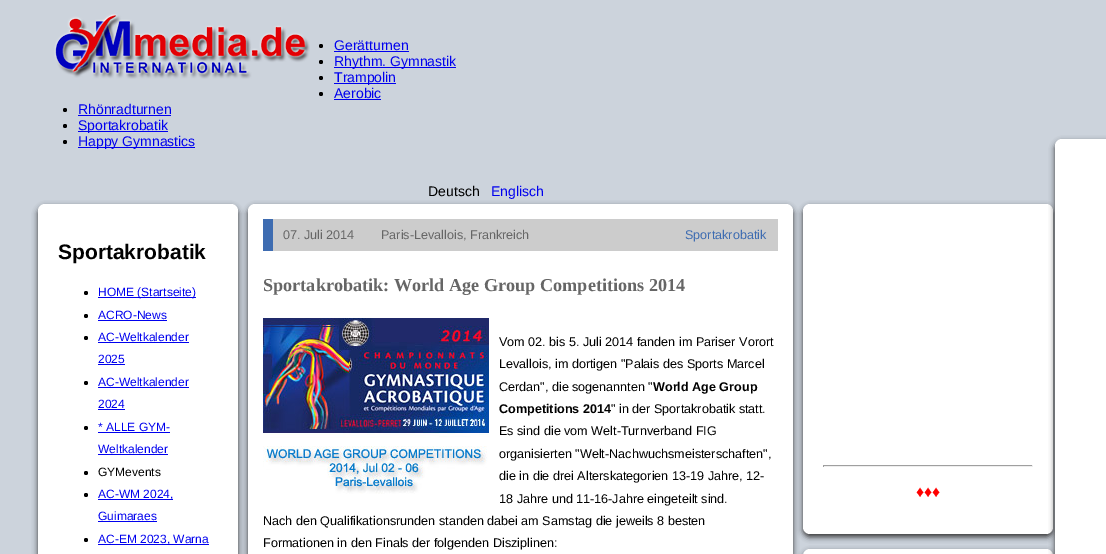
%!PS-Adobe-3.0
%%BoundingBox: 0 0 1106 554
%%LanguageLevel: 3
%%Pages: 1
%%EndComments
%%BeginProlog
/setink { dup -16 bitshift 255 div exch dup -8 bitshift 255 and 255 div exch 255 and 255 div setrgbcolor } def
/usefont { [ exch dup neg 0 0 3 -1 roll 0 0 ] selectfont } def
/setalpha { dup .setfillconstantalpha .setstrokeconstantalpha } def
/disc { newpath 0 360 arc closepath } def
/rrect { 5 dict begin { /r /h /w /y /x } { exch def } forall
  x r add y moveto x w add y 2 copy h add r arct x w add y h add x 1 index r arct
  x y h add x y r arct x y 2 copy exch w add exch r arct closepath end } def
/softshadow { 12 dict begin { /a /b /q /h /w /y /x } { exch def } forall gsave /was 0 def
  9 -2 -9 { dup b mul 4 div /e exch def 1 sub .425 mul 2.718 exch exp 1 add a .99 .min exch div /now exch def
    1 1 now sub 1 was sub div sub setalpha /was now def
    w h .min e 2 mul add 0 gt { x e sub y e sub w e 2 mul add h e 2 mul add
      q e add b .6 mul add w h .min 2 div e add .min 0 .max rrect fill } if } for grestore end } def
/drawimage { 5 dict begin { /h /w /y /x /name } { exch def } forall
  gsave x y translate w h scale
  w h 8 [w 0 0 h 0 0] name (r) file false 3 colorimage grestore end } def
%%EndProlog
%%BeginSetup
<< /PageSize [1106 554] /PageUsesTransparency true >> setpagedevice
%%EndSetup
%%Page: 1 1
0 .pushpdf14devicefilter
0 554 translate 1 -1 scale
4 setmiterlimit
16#CCD3DC setink
0 0 1106 554 rectfill
(img1.raw) 54 14 256 65 drawimage
16#000000 setink
321 46 2 disc fill
/LiberationSans-Regular 14 usefont
16#0000EE setink
334 50 moveto (Gerätturnen) show
334 51 75 1 rectfill
16#000000 setink
321 62 2 disc fill
16#0000EE setink
334 67 122 1 rectfill
334 66 moveto (Rhythm. Gymnastik) show
16#000000 setink
321 78 2 disc fill
16#0000EE setink
334 83 62 1 rectfill
334 82 moveto (Trampolin) show
16#000000 setink
321 94 2 disc fill
16#0000EE setink
334 98 moveto (Aerobic) show
334 99 47 1 rectfill
16#000000 setink
65 110 2 disc fill
16#0000EE setink
78 114 moveto (Rhönradturnen) show
78 115 93 1 rectfill
16#000000 setink
65 126 2 disc fill
16#0000EE setink
78 131 90 1 rectfill
78 130 moveto (Sportakrobatik) show
16#000000 setink
65 142 2 disc fill
16#0000EE setink
78 147 117 1 rectfill
78 146 moveto (Happy Gymnastics) show
16#000000 setink
428 196 moveto (Deutsch) show
16#333333 setink
248 207 545 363 7 3 1 softshadow
16#0000EE setink
491 196 moveto (Englisch) show
16#333333 setink
38 207 200 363 7 3 1 softshadow
16#FFFFFF setink
38 204 200 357 7 rrect fill
/LiberationSans-Bold 21 usefont
16#000000 setink
58 259 moveto (Sportakrobatik) show
86 293 2 disc fill
16#0000EE setink
98 297 98 1 rectfill
/LiberationSans-Regular 12 usefont
98 296 moveto (HOME \(Startseite\)) show
16#000000 setink
86 316 2 disc fill
16#0000EE setink
98 319 moveto (ACRO-News) show
98 320 69 1 rectfill
16#000000 setink
86 338 2 disc fill
16#0000EE setink
98 341 moveto (AC-Weltkalender) show
98 342 91 1 rectfill
98 363 moveto (2025) show
98 364 27 1 rectfill
16#000000 setink
86 383 2 disc fill
16#0000EE setink
98 386 moveto (AC-Weltkalender) show
98 387 91 1 rectfill
98 408 moveto (2024) show
98 409 27 1 rectfill
16#000000 setink
86 428 2 disc fill
16#0000EE setink
98 431 moveto (* ALLE GYM-) show
98 432 72 1 rectfill
98 453 moveto (Weltkalender) show
98 454 70 1 rectfill
16#000000 setink
86 473 2 disc fill
98 476 moveto (GYMevents) show
86 495 2 disc fill
16#0000EE setink
98 499 75 1 rectfill
98 498 moveto (AC-WM 2024,) show
98 520 moveto (Guimaraes) show
98 521 59 1 rectfill
16#000000 setink
86 540 2 disc fill
16#0000EE setink
98 544 111 1 rectfill
98 543 moveto (AC-EM 2023, Warna) show
16#FFFFFF setink
248 204 545 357 7 rrect fill
16#CCCCCC setink
273 219 505 32 rectfill
16#3E6CB1 setink
263 219 10 32 rectfill
/LiberationSans-Regular 12.6 usefont
16#666666 setink
283 239 moveto (07. Juli 2014) show
381 239 moveto (Paris-Levallois, Frankreich) show
16#3E6CB1 setink
685 239 moveto (Sportakrobatik) show
/LiberationSerif-Bold 18.2 usefont
16#666666 setink
263 291 moveto (Sportakrobatik: World Age Group Competitions 2014) show
(img2.raw) 263 318 226 176 drawimage
/LiberationSans-Regular 12.6 usefont
16#000000 setink
[
    [(Vom 02. bis 5. Juli 2014 fanden im Pariser Vorort) 499 346]
    [(Levallois, im dortigen "Palais des Sports Marcel) 499 368]
    [(Cerdan", die sogenannten ") 499 391]
] { aload pop moveto show } forall
/LiberationSans-Bold 12.6 usefont
653 391 moveto (World Age Group) show
499 413 moveto (Competitions 2014) show
/LiberationSans-Regular 12.6 usefont
[
    [(" in der Sportakrobatik statt.) 611 413]
    [(Es sind die vom Welt-Turnverband FIG) 499 435]
    [(organisierten "Welt-Nachwuchsmeisterschaften",) 499 458]
    [(die in die drei Alterskategorien 13-19 Jahre, 12-) 499 480]
    [(18 Jahre und 11-16-Jahre eingeteilt sind.) 499 503]
    [(Nach den Qualifikationsrunden standen dabei am Samstag die jeweils 8 besten) 263 525]
    [(Formationen in den Finals der folgenden Disziplinen:) 263 547]
] { aload pop moveto show } forall
16#333333 setink
803 207 250 330 7 3 1 softshadow
16#FFFFFF setink
803 204 250 330 7 rrect fill
[
    [823 465 210 1 16#9F9F9F]
    [1032 465 1 2 16#EEEEEE]
    [823 466 210 1 16#EEEEEE]
    [823 465 1 2 16#9F9F9F]
] { aload pop setink rectfill } forall
/LiberationSans-Regular 16 usefont
16#FF0000 setink
916 497 moveto (♦♦♦) show
16#333333 setink
803 552 250 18 7 3 1 softshadow
16#FFFFFF setink
803 549 250 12 7 rrect fill
16#333333 setink
1055 142 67 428 7 3 1 softshadow
16#FFFFFF setink
1055 139 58 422 7 rrect fill
.poppdf14devicefilter showpage
%%EOF
